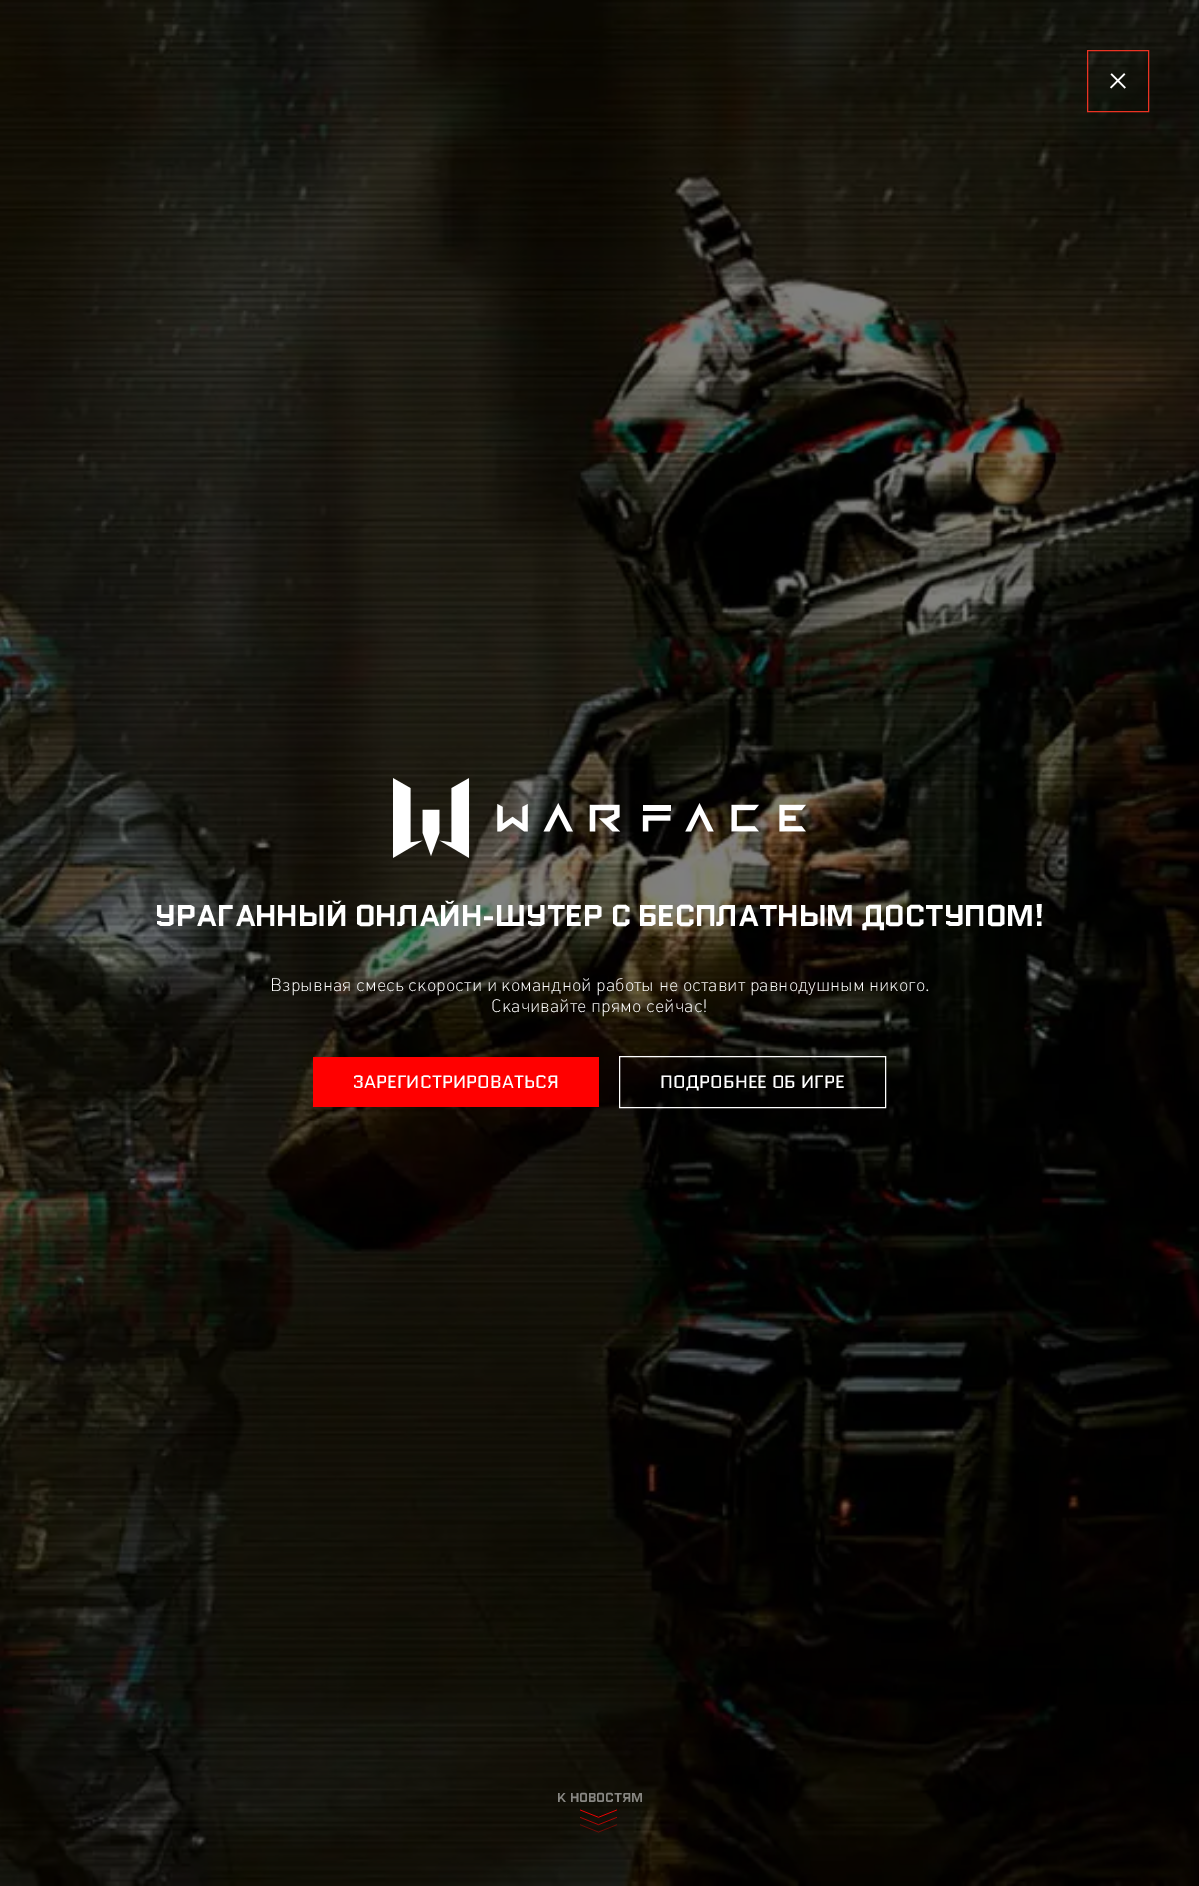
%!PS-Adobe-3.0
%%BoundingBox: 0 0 1199 1886
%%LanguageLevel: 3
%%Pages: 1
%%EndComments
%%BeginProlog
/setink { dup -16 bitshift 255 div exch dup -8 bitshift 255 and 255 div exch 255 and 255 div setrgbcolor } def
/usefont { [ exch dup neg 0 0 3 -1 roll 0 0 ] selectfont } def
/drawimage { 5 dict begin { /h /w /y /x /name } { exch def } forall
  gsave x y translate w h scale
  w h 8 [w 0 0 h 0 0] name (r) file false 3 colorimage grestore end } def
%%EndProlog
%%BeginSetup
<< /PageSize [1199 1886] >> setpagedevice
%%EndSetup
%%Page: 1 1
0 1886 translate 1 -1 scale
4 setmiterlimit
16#000000 setink
0 0 1199 1886 rectfill
(img1.raw) 0 0 1199 1886 drawimage
16#EB3323 setink
1087.5 50.5 61 61 rectstroke
(img2.raw) 1110 73 16 16 drawimage
(img3.raw) 393 778 413 80 drawimage
/Quantico-Bold 30 usefont
16#FFFFFF setink
155 926 moveto (УРАГАННЫЙ ОНЛАЙН-ШУТЕР С БЕСПЛАТНЫМ ДОСТУПОМ!) show
/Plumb-Light 18 usefont
270 991 moveto (Взрывная смесь скорости и командной работы не оставит равнодушным никого.) show
491 1012 moveto (Скачивайте прямо сейчас!) show
16#FF0000 setink
313 1057 286 50 rectfill
/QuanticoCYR-Regular 18 usefont
16#FFFFFF setink
353 1088 moveto (ЗАРЕГИСТРИРОВАТЬСЯ) show
619.5 1056.5 266 51 rectstroke
660 1088 moveto (ПОДРОБНЕЕ ОБ ИГРЕ) show
/Quantico-Bold 13 usefont
16#888783 setink
557 1802 moveto (К НОВОСТЯМ) show
(img4.raw) 580 1809 40 24 drawimage
showpage
%%EOF
